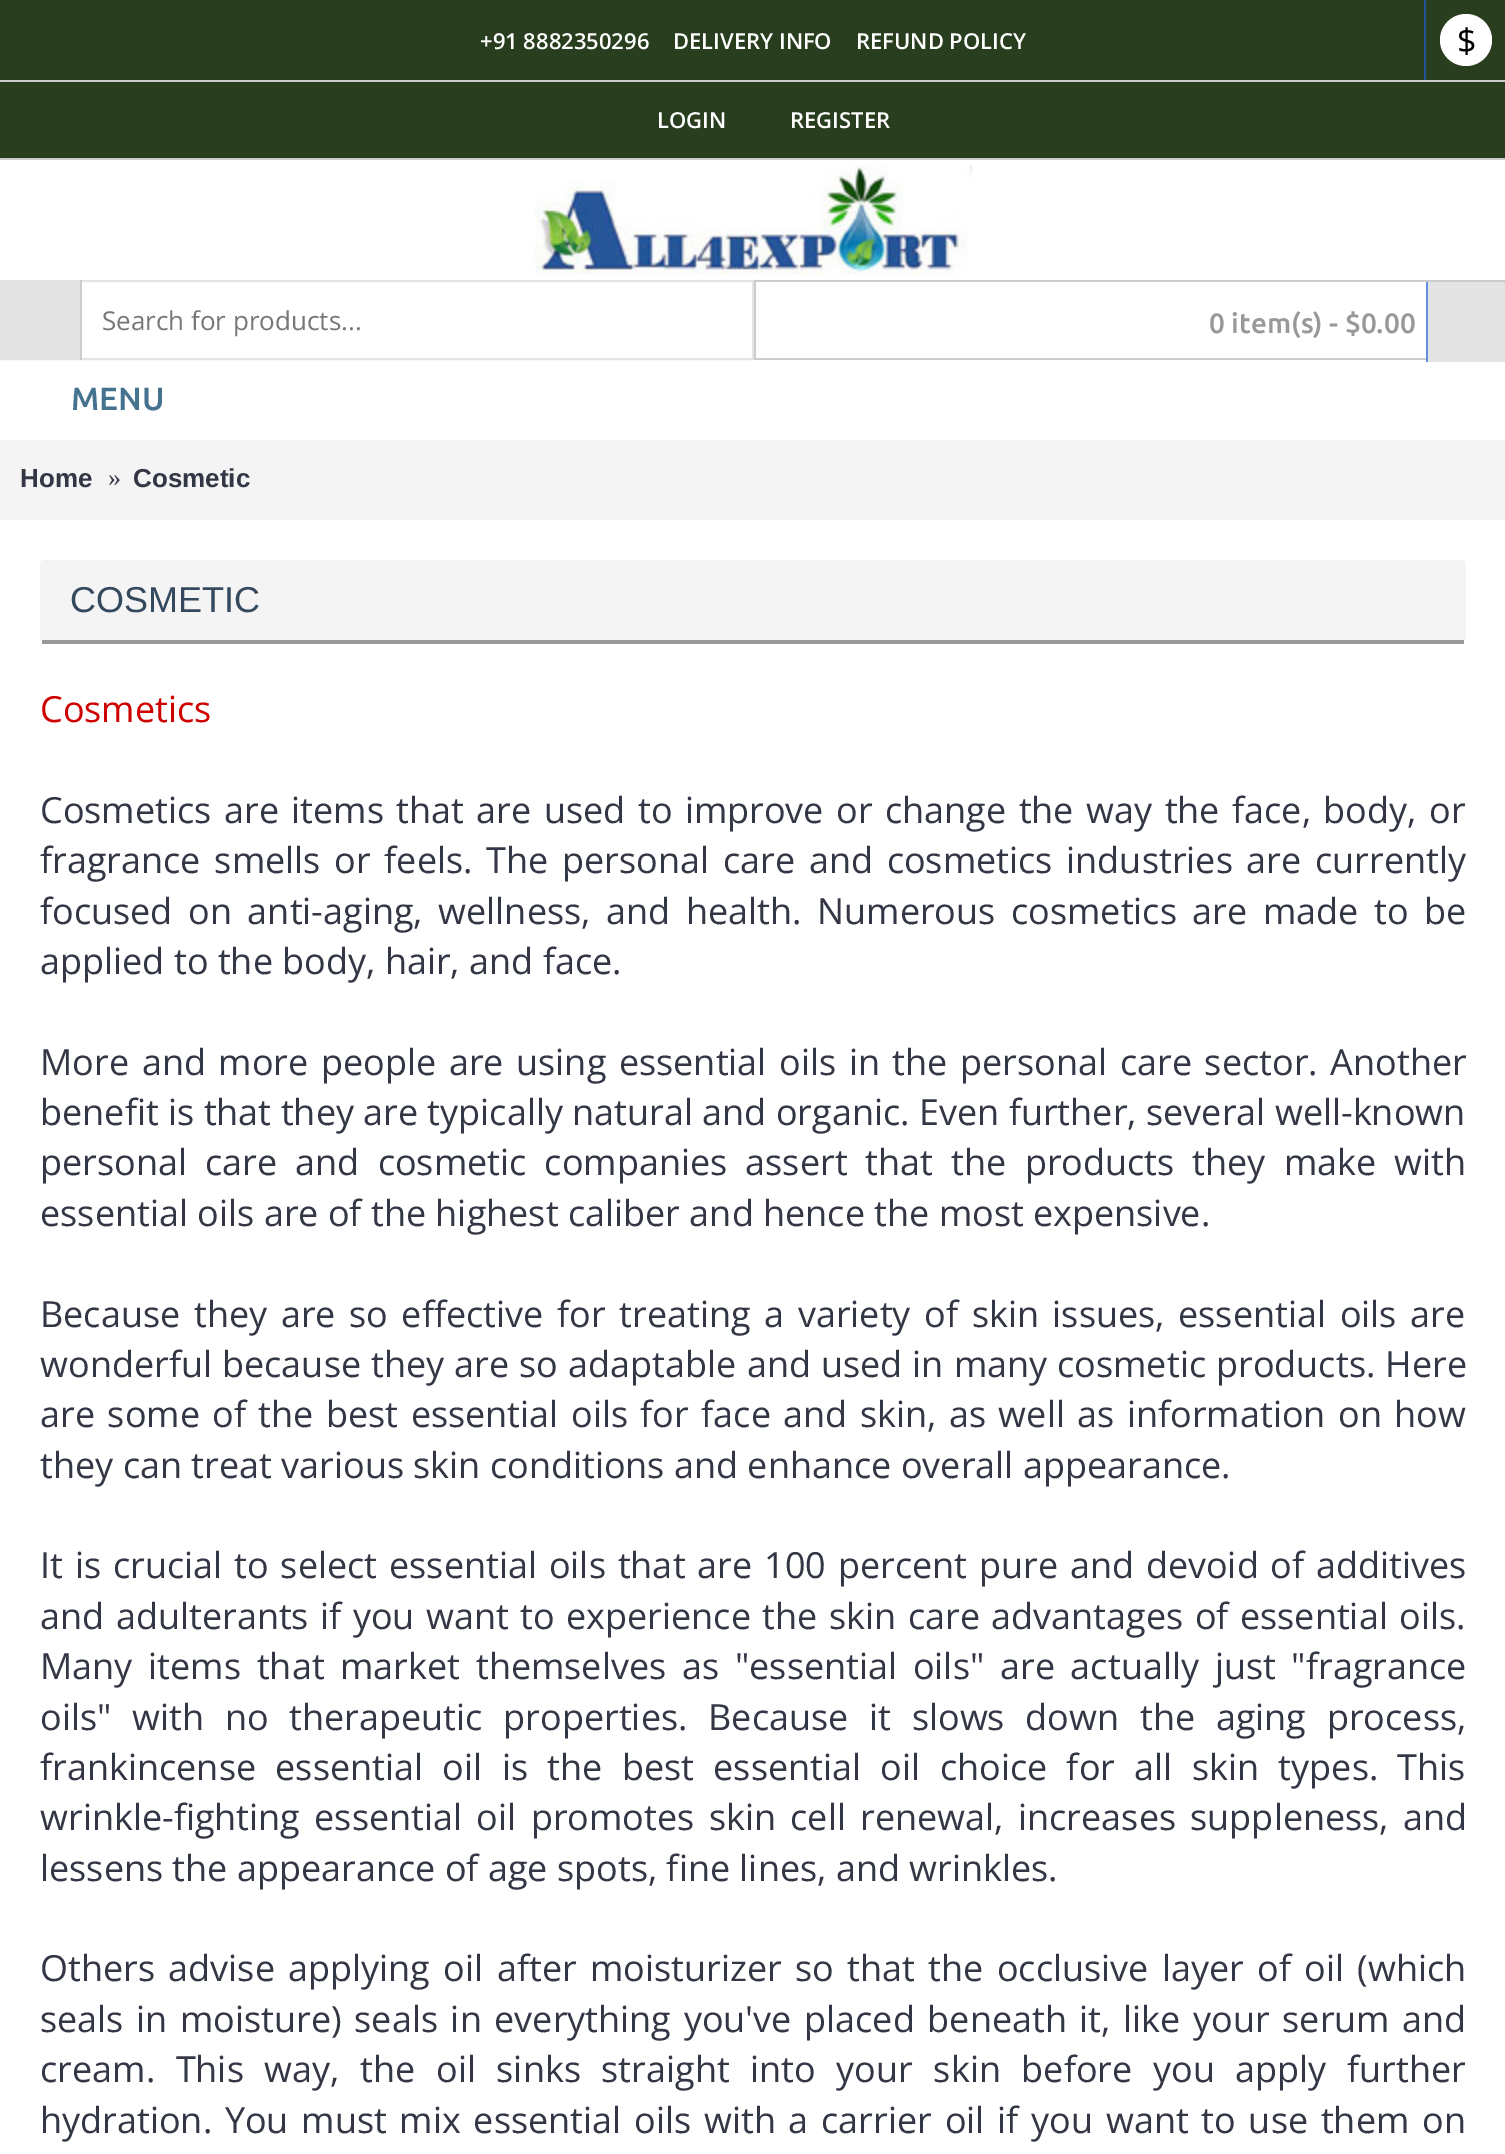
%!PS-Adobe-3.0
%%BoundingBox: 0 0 1505 2154
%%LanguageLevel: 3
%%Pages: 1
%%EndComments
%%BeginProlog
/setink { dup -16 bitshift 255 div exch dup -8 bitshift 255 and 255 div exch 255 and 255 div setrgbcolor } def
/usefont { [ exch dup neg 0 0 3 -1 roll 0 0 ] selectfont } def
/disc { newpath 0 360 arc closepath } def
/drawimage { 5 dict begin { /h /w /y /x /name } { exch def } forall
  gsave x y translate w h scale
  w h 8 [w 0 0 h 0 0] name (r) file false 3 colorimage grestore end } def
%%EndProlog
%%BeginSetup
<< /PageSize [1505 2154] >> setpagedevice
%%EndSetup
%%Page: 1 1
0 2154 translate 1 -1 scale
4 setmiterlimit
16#FFFFFF setink
0 0 1505 2154 rectfill
16#293E1E setink
0 0 1505 80 rectfill
/OpenSans-SemiBold 22 usefont
16#FFFFFF setink
[
    [(+91 8882350296) 480 49]
    [(DELIVERY INFO) 673 49]
    [(REFUND POLICY) 856 49]
] { aload pop moveto show } forall
16#225299 setink
1424 0 2 80 rectfill
16#FFFFFF setink
1466 40 26 disc fill
/OpenSans-Regular 34 usefont
16#000000 setink
1457 53 moveto ($) show
[
    [0 82 1505 76 16#293E1E]
    [0 80 1505 2 16#CCCCCC]
    [0 158 1505 2 16#CCCCCC]
] { aload pop setink rectfill } forall
/OpenSans-SemiBold 22 usefont
16#FFFFFF setink
657 128 moveto (LOGIN) show
790 128 moveto (REGISTER) show
(img1.raw) 534 165 439 110 drawimage
16#E4E4E4 setink
2 setlinewidth
1 281 752 78 rectstroke
2 282 78 76 rectfill
16#CCCCCC setink
80 280 2 80 rectfill
/OpenSans-Regular 26 usefont
16#777777 setink
102 330 moveto (Search for products...) show
[
    [754 280 751 2 16#CCCCCC]
    [754 358 672 2 16#CCCCCC]
    [754 280 2 80 16#CCCCCC]
] { aload pop setink rectfill } forall
/Ubuntu-Medium 28 usefont
16#999999 setink
1209 333 moveto (0 item\(s\) - $0.00) show
16#E4E4E4 setink
1428 282 77 80 rectfill
16#6390E2 setink
1426 282 2 80 rectfill
/Ubuntu-Medium 32 usefont
16#45738F setink
71 410 moveto (MENU) show
16#F4F4F4 setink
0 440 1505 80 rectfill
/LiberationSans-Bold 26 usefont
16#333745 setink
20 487 moveto (Home) show
/LiberationSerif-Regular 26 usefont
108 486 moveto (») show
/LiberationSans-Bold 26 usefont
133 487 moveto (Cosmetic) show
16#F4F4F4 setink
44 560 moveto 1462 560 lineto 1464 560 1466 562 1466 564 curveto 1466 640 lineto 40 640 lineto 40 564 lineto 40 562 42 560 44 560 curveto closepath fill
16#999999 setink
42 640 1422 4 rectfill
/LiberationSans-Regular 36 usefont
16#34495E setink
70 612 moveto (COSMETIC) show
/OpenSans-Regular 36 usefont
16#CE0000 setink
40 722 moveto (Cosmetics) show
16#333745 setink
40 823 moveto 3.1 0 32 (Cosmetics are items that are used to improve or change the way the face, body, or) widthshow
40 873 moveto 4.4 0 32 (fragrance smells or feels. The personal care and cosmetics industries are currently) widthshow
40 924 moveto 6.25 0 32 (focused on anti-aging, wellness, and health. Numerous cosmetics are made to be) widthshow
40 974 moveto (applied to the body, hair, and face.) show
40 1075 moveto 3.25 0 32 (More and more people are using essential oils in the personal care sector. Another) widthshow
40 1125 moveto (benefit is that they are typically natural and organic. Even further, several well-known) show
40 1175 moveto 8.75 0 32 (personal care and cosmetic companies assert that the products they make with) widthshow
40 1226 moveto (essential oils are of the highest caliber and hence the most expensive.) show
40 1327 moveto 4.25 0 32 (Because they are so effective for treating a variety of skin issues, essential oils are) widthshow
40 1377 moveto 0.75 0 32 (wonderful because they are so adaptable and used in many cosmetic products. Here) widthshow
40 1427 moveto 3.1 0 32 (are some of the best essential oils for face and skin, as well as information on how) widthshow
40 1478 moveto (they can treat various skin conditions and enhance overall appearance.) show
40 1578 moveto 2.5 0 32 (It is crucial to select essential oils that are 100 percent pure and devoid of additives) widthshow
40 1629 moveto 2.1 0 32 (and adulterants if you want to experience the skin care advantages of essential oils.) widthshow
40 1679 moveto 6.4 0 32 (Many items that market themselves as "essential oils" are actually just "fragrance) widthshow
40 1730 moveto 11.4 0 32 (oils" with no therapeutic properties. Because it slows down the aging process,) widthshow
40 1780 moveto 10 0 32 (frankincense essential oil is the best essential oil choice for all skin types. This) widthshow
40 1830 moveto 5 0 32 (wrinkle-fighting essential oil promotes skin cell renewal, increases suppleness, and) widthshow
40 1881 moveto (lessens the appearance of age spots, fine lines, and wrinkles.) show
40 1981 moveto 4 0 32 (Others advise applying oil after moisturizer so that the occlusive layer of oil \(which) widthshow
40 2032 moveto 3.25 0 32 (seals in moisture\) seals in everything you've placed beneath it, like your serum and) widthshow
40 2082 moveto 11.25 0 32 (cream. This way, the oil sinks straight into your skin before you apply further) widthshow
40 2133 moveto 3.4 0 32 (hydration. You must mix essential oils with a carrier oil if you want to use them on) widthshow
showpage
%%EOF
